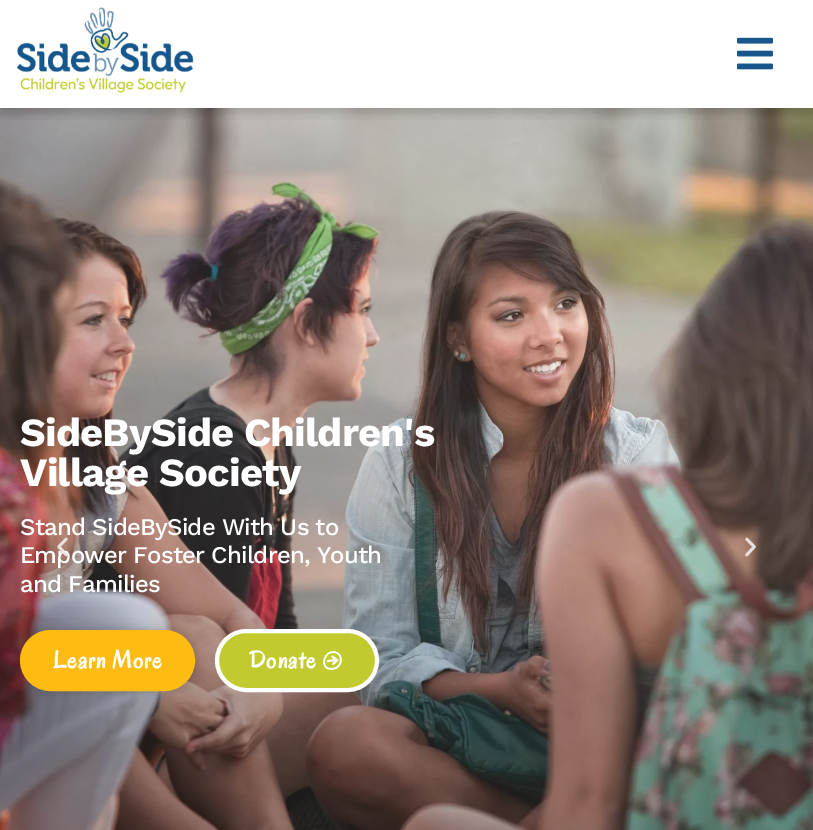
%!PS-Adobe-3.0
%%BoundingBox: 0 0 813 830
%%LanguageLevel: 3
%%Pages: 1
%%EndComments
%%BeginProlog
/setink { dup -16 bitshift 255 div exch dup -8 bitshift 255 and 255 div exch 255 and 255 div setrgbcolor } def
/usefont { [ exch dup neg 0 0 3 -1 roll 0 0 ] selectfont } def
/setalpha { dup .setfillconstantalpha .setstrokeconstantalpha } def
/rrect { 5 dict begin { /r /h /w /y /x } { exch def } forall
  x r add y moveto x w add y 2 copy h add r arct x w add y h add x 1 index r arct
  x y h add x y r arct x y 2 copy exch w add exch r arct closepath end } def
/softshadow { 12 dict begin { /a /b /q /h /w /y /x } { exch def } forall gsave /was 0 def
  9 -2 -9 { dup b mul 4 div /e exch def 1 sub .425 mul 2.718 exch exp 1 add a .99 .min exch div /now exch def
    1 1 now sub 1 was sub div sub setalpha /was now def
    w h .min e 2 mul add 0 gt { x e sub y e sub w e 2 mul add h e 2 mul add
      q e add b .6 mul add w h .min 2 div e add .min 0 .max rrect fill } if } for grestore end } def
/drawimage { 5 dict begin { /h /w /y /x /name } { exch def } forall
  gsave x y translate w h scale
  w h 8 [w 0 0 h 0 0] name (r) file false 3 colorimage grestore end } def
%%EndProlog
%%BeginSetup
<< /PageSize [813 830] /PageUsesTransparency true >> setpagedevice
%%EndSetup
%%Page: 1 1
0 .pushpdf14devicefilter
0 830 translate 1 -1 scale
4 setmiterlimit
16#FFFFFF setink
0 0 813 830 rectfill
(img3.raw) 0 108 813 722 drawimage
gsave
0 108 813 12 rectclip
16#000000 setink
0 6 813 108 0 5 0.16 softshadow
grestore
(img1.raw) 17 7 177 86 drawimage
(img2.raw) 737 37 36 33 drawimage
/WorkSans-Bold 40 usefont
20 446 moveto -0.8 0 (SideBySide Children's) ashow
20 486 moveto -0.8 0 (Village Society) ashow
/WorkSans-Medium 24 usefont
20 535 moveto -0.8 0 (Stand SideBySide With Us to) ashow
20 563 moveto -0.8 0 (Empower Foster Children, Youth) ashow
20 592 moveto -0.8 0 (and Families) ashow
16#000000 setink
20 630 175 61 30.5 5 0.2 softshadow
16#FEBC12 setink
21.5 631.5 172 58 29 rrect gsave fill grestore
3 setlinewidth
stroke
/Oregano-Bold 25 usefont
16#FFFFFF setink
53 668 moveto 1 0 (Learn More) ashow
16#C1CB30 setink
217 631 160 59 29.5 rrect gsave fill grestore
16#FFFFFF setink
4 setlinewidth
stroke
249 668 moveto 1 0 (Donate) ashow
(img4.raw) 323 651 19 19 drawimage
(img5.raw) 57 537 11 20 drawimage
(img6.raw) 745 537 11 20 drawimage
.poppdf14devicefilter showpage
%%EOF
